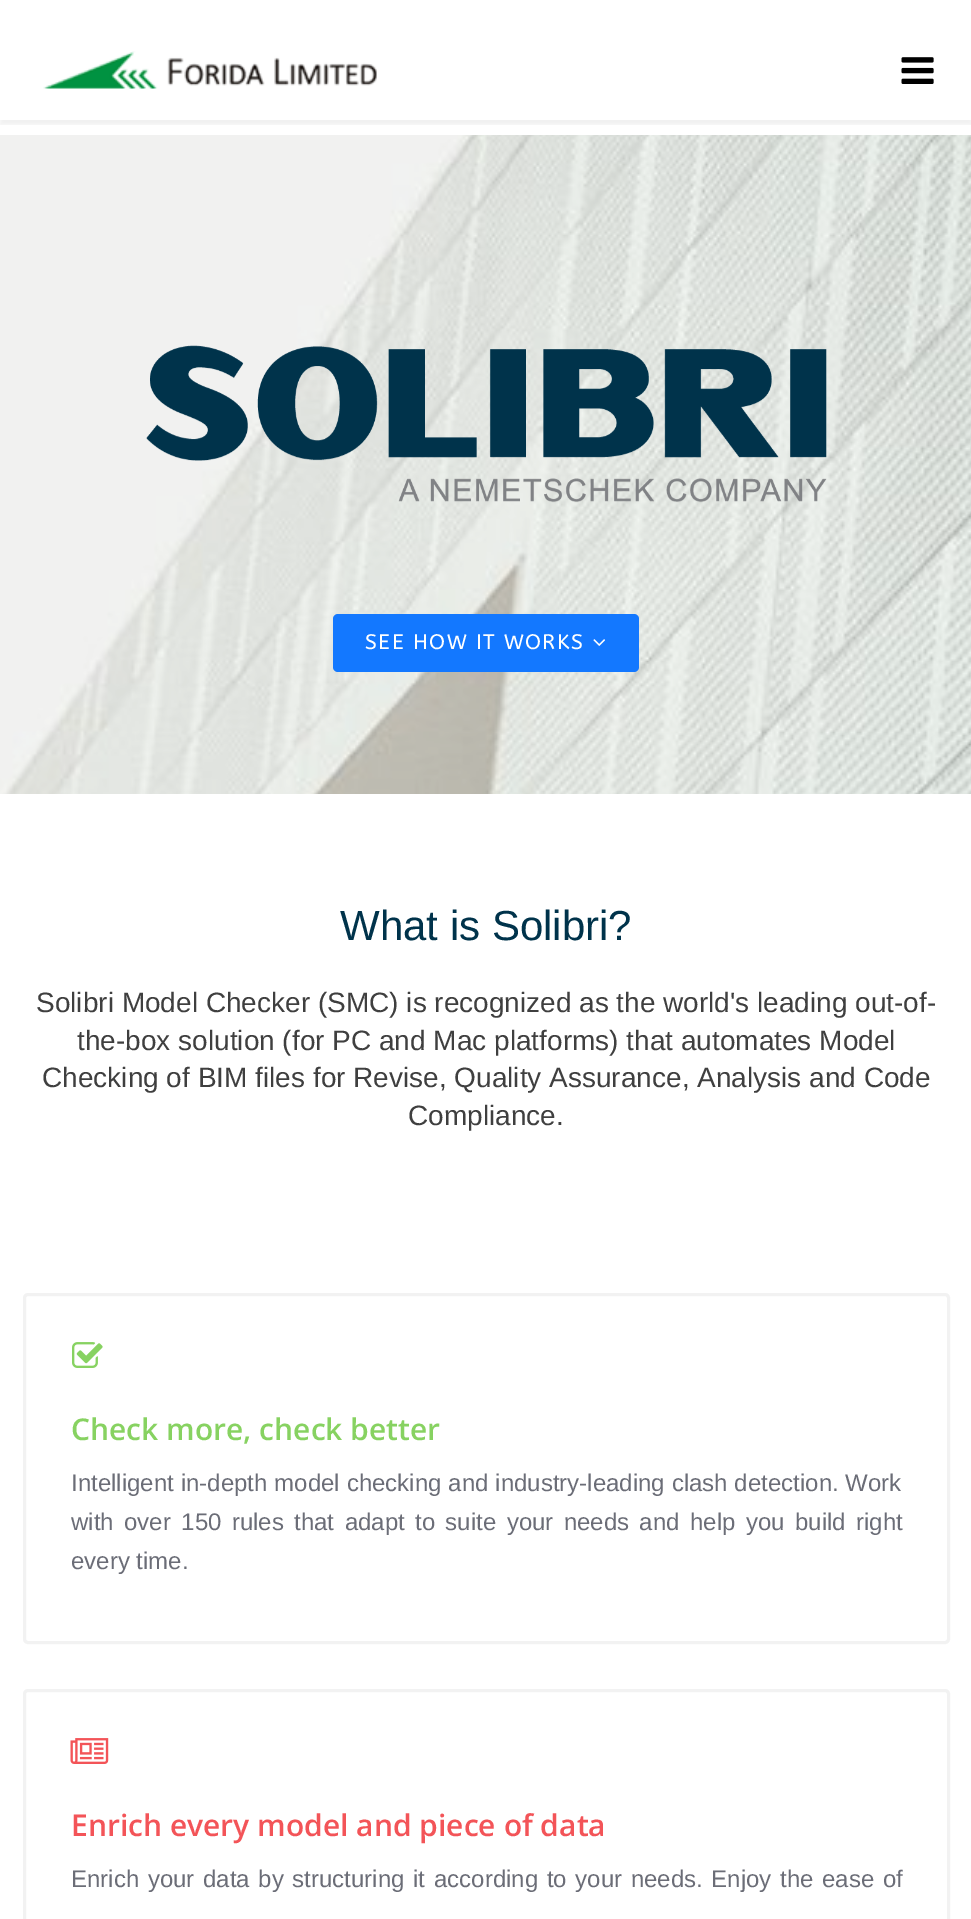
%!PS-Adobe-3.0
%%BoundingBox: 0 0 971 1919
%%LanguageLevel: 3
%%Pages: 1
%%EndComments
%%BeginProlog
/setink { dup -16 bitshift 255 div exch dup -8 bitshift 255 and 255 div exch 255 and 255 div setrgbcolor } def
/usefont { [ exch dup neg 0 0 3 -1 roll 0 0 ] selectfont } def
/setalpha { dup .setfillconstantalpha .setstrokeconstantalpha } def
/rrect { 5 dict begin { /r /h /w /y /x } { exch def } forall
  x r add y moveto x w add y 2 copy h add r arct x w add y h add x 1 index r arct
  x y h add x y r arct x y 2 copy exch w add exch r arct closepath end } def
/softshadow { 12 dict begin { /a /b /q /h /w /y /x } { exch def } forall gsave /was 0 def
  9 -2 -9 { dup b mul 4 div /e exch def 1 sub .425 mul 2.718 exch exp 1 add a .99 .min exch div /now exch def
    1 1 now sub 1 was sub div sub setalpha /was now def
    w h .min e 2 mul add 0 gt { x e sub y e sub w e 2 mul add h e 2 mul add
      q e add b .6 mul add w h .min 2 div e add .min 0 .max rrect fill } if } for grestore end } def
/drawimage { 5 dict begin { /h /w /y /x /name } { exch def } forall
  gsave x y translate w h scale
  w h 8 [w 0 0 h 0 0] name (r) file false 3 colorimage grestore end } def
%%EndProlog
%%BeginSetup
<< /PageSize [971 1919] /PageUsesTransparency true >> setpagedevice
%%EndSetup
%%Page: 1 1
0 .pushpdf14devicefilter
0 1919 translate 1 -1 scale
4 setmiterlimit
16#FFFFFF setink
0 0 971 1919 rectfill
gsave
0 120 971 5 rectclip
16#000000 setink
0 5 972 120 0 2 0.05 softshadow
grestore
(img1.raw) 43 51 334 38 drawimage
(img2.raw) 901 57 33 27 drawimage
(img3.raw) 0 135 971 659 drawimage
(img4.raw) 146 345 681 158 drawimage
16#1378FF setink
333 614 306 58 5 rrect fill
/ABeeZee-Regular 21 usefont
16#FFFFFF setink
365 649 moveto 1.5 0 (SEE HOW IT WORKS) ashow
(img5.raw) 593 639 12 7 drawimage
/LiberationSans-Regular 42 usefont
16#00334B setink
340 940 moveto (What is Solibri?) show
/LiberationSans-Regular 28 usefont
16#3F3F3F setink
[
    [(Solibri Model Checker \(SMC\) is recognized as the world's leading out-of-) 36 1012]
    [(the-box solution \(for PC and Mac platforms\) that automates Model) 77 1050]
    [(Checking of BIM files for Revise, Quality Assurance, Analysis and Code) 42 1087]
    [(Compliance.) 408 1125]
] { aload pop moveto show } forall
16#F2F2F2 setink
3 setlinewidth
24.5 1294.5 924 348 3.5 rrect stroke
(img6.raw) 72 1342 31 26 drawimage
/OpenSans-SemiBold 30 usefont
16#87D261 setink
71 1440 moveto (Check more, check better) show
/LiberationSans-Regular 24 usefont
16#6B6D77 setink
71 1491 moveto 0.25 0 32 (Intelligent in-depth model checking and industry-leading clash detection. Work) widthshow
71 1530 moveto 3.75 0 32 (with over 150 rules that adapt to suite your needs and help you build right) widthshow
71 1569 moveto (every time.) show
16#F2F2F2 setink
24.5 1690.5 924 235 3.5 rrect stroke
(img7.raw) 70 1738 39 26 drawimage
/OpenSans-SemiBold 30 usefont
16#F35458 setink
71 1836 moveto (Enrich every model and piece of data) show
/LiberationSans-Regular 24 usefont
16#6B6D77 setink
71 1887 moveto 2 0 32 (Enrich your data by structuring it according to your needs. Enjoy the ease of) widthshow
.poppdf14devicefilter showpage
%%EOF
